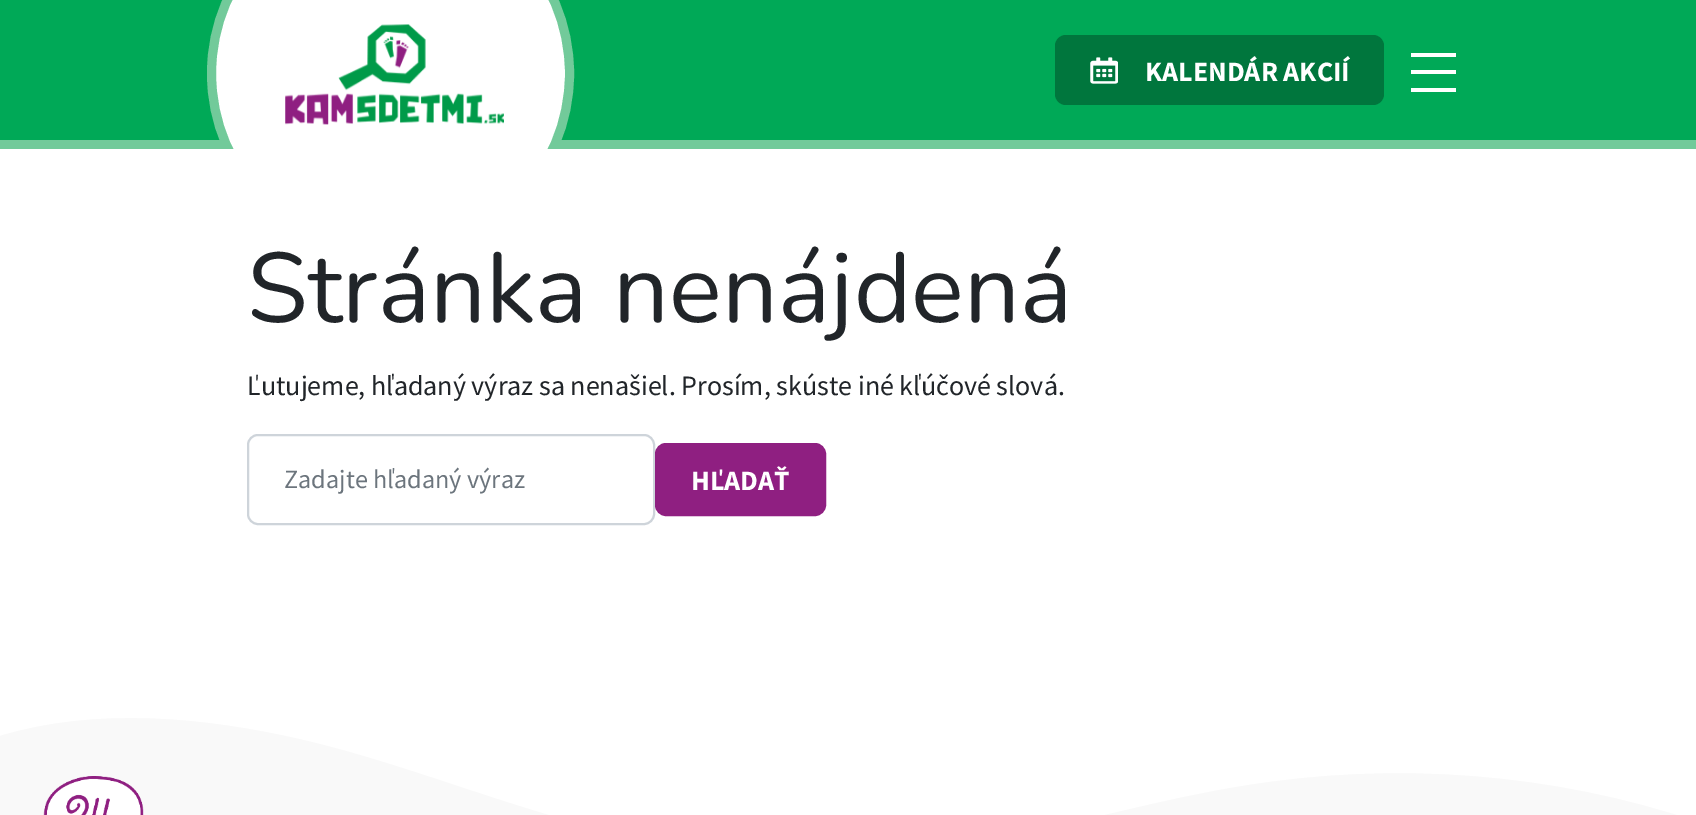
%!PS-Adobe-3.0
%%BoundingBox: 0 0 1696 815
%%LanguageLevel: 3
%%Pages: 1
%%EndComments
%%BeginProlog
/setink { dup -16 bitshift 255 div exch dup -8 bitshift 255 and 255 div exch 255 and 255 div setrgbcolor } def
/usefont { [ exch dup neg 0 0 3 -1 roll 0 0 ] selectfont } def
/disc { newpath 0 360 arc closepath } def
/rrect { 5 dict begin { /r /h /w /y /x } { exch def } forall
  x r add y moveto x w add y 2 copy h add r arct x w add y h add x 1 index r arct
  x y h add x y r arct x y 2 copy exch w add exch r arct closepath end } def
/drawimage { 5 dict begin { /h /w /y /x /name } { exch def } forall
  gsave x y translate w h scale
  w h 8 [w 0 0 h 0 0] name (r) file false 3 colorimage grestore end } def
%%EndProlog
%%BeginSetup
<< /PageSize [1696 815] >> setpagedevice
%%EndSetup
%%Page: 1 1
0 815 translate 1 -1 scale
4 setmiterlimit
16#FFFFFF setink
0 0 1696 815 rectfill
16#00A957 setink
0 0 1696 140 rectfill
16#72CA9A setink
0 140 1696 9 rectfill
/Nunito-ExtraLight 98.75 usefont
16#212529 setink
247 322 moveto (Stránka nenájdená) show
gsave
0 0 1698 149 rectclip
16#FFFFFF setink
390.5 73.5 179 disc gsave fill grestore
16#72CA9A setink
9 setlinewidth
stroke
grestore
(img1.raw) 285 24 219 101 drawimage
16#00763D setink
1055 35 329 70 11 rrect fill
(img2.raw) 1090 57 28 27 drawimage
/SourceSansPro-Bold 28 usefont
16#FFFFFF setink
1145 81 moveto (KALENDÁR AKCIÍ) show
[
    [1411 70 45 4 16#FFFFFF]
    [1411 53 45 4 16#FFFFFF]
    [1411 88 45 4 16#FFFFFF]
] { aload pop setink rectfill } forall
/SourceSansPro-Regular 28 usefont
16#212529 setink
247 395 moveto (Ľutujeme, hľadaný výraz sa nenašiel. Prosím, skúste iné kľúčové slová.) show
16#CED4DA setink
2 setlinewidth
248 435 406 89 10 rrect stroke
/SourceSansPro-Regular 26.25 usefont
16#6C757D setink
284 488 moveto (Zadajte hľadaný výraz) show
16#8F1F81 setink
656 444 169 71 10 rrect gsave fill grestore
stroke
/SourceSansPro-Bold 28 usefont
16#FFFFFF setink
691 490 moveto (HĽADAŤ) show
16#F9F9F9 setink
1243 786 moveto 1161 799 1081 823 1000 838 curveto 883 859 762 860 645 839 curveto 532 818 415 766 303 740 curveto 204 717 96 707 0 736 curveto 0 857 lineto 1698 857 lineto 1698 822 lineto 1553 773 1395 761 1243 786 curveto closepath fill
(img3.raw) 43 776 101 39 drawimage
showpage
%%EOF
